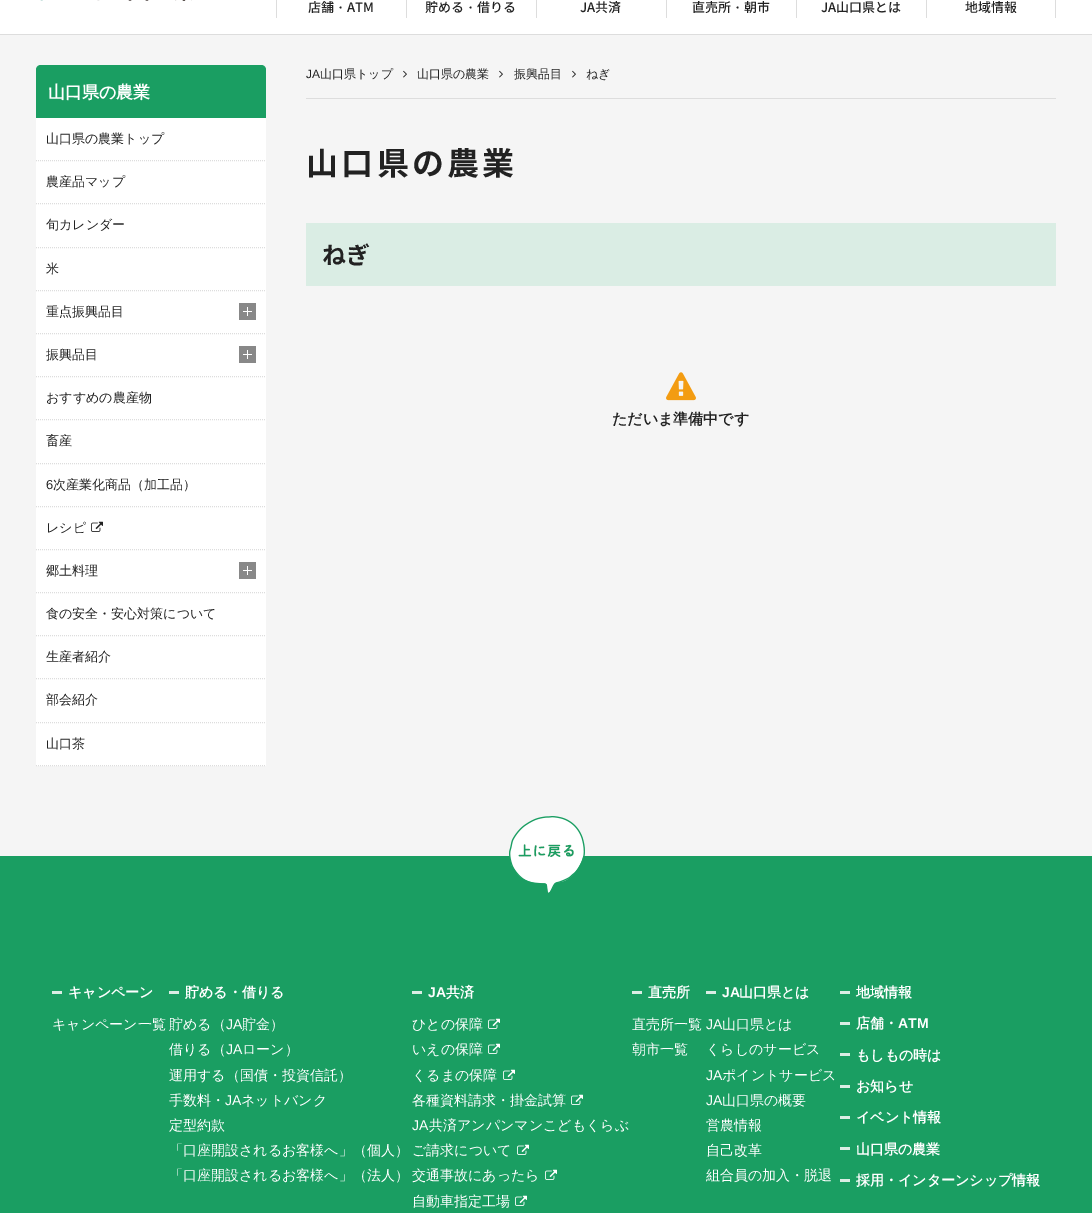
%!PS-Adobe-3.0
%%BoundingBox: 0 0 1092 1213
%%LanguageLevel: 3
%%Pages: 1
%%EndComments
%%BeginProlog
/setink { dup -16 bitshift 255 div exch dup -8 bitshift 255 and 255 div exch 255 and 255 div setrgbcolor } def
/usefont { [ exch dup neg 0 0 3 -1 roll 0 0 ] selectfont } def
/drawimage { 5 dict begin { /h /w /y /x /name } { exch def } forall
  gsave x y translate w h scale
  w h 8 [w 0 0 h 0 0] name (r) file false 3 colorimage grestore end } def
%%EndProlog
%%BeginSetup
<< /PageSize [1092 1213] >> setpagedevice
%%EndSetup
%%Page: 1 1
0 1213 translate 1 -1 scale
4 setmiterlimit
16#FFFFFF setink
0 0 1092 1213 rectfill
16#DDDDDD setink
0 34 1092 1 rectfill
(img1.raw) 40 0 152 1 drawimage
1055 0 1 18 rectfill
276 0 1 18 rectfill
/NotoSansCJKJP-Medium 13 usefont
16#222222 setink
308 12 moveto (店舗) show
/WenQuanYiZenHei-Medium 13 usefont
334 12 moveto (・) show
/NotoSansCJKJP-Medium 13 usefont
347 12 moveto (ATM) show
16#DDDDDD setink
406 0 1 18 rectfill
16#222222 setink
425 12 moveto (貯める) show
/WenQuanYiZenHei-Medium 13 usefont
464 12 moveto (・) show
/NotoSansCJKJP-Medium 13 usefont
477 12 moveto (借りる) show
16#DDDDDD setink
536 0 1 18 rectfill
16#222222 setink
580 12 moveto (JA共済) show
16#DDDDDD setink
666 0 1 18 rectfill
16#222222 setink
692 12 moveto (直売所) show
/WenQuanYiZenHei-Medium 13 usefont
731 12 moveto (・) show
/NotoSansCJKJP-Medium 13 usefont
744 12 moveto (朝市) show
16#DDDDDD setink
796 0 1 18 rectfill
16#222222 setink
821 12 moveto (JA山口県とは) show
16#DDDDDD setink
926 0 1 18 rectfill
16#222222 setink
965 12 moveto (地域情報) show
16#F5F5F5 setink
0 35 1092 821 rectfill
16#1A9E62 setink
41 65 moveto 261 65 lineto 264 65 266 67 266 70 curveto 266 118 lineto 36 118 lineto 36 70 lineto 36 67 38 65 41 65 curveto closepath fill
/WenQuanYiZenHei-Bold 17 usefont
16#FFFFFF setink
48 98 moveto (山口県の農業) show
36 118 230 648 rectfill
16#DDDDDD setink
[1 1] 0 setdash
36 160.5 moveto 266 160.5 lineto stroke
/WenQuanYiZenHei-Medium 13 usefont
16#222222 setink
46 143 moveto (山口県の農業トップ) show
16#DDDDDD setink
36 203.5 moveto 266 203.5 lineto stroke
16#222222 setink
46 186 moveto (農産品マップ) show
16#DDDDDD setink
36 247.5 moveto 266 247.5 lineto stroke
16#222222 setink
46 229 moveto (旬カレンダー) show
16#DDDDDD setink
36 290.5 moveto 266 290.5 lineto stroke
16#222222 setink
46 273 moveto (米) show
16#DDDDDD setink
36 333.5 moveto 266 333.5 lineto stroke
16#222222 setink
46 316 moveto (重点振興品目) show
(img2.raw) 239 303 17 17 drawimage
16#DDDDDD setink
36 376.5 moveto 266 376.5 lineto stroke
16#222222 setink
46 359 moveto (振興品目) show
(img2.raw) 239 346 17 17 drawimage
16#DDDDDD setink
36 419.5 moveto 266 419.5 lineto stroke
16#222222 setink
46 402 moveto (おすすめの農産物) show
16#DDDDDD setink
36 463.5 moveto 266 463.5 lineto stroke
16#222222 setink
46 445 moveto (畜産) show
16#DDDDDD setink
36 506.5 moveto 266 506.5 lineto stroke
/LiberationSans-Regular 13 usefont
16#222222 setink
46 489 moveto (6) show
/WenQuanYiZenHei-Medium 13 usefont
53 489 moveto (次産業化商品（加工品）) show
16#DDDDDD setink
36 549.5 moveto 266 549.5 lineto stroke
16#222222 setink
46 532 moveto (レシピ) show
(img3.raw) 91 521 12 11 drawimage
16#DDDDDD setink
36 592.5 moveto 266 592.5 lineto stroke
16#222222 setink
46 575 moveto (郷土料理) show
(img2.raw) 239 562 17 17 drawimage
16#DDDDDD setink
36 635.5 moveto 266 635.5 lineto stroke
16#222222 setink
46 618 moveto (食の安全・安心対策について) show
16#DDDDDD setink
36 678.5 moveto 266 678.5 lineto stroke
16#222222 setink
46 661 moveto (生産者紹介) show
16#DDDDDD setink
36 722.5 moveto 266 722.5 lineto stroke
16#222222 setink
46 704 moveto (部会紹介) show
16#DDDDDD setink
36 765.5 moveto 266 765.5 lineto stroke
16#222222 setink
46 748 moveto (山口茶) show
16#DDDDDD setink
306 98 750 1 rectfill
/LiberationSans-Regular 12 usefont
16#222222 setink
306 78 moveto (JA) show
/WenQuanYiZenHei-Medium 12 usefont
320 78 moveto (山口県トップ) show
(img4.raw) 403 70 4 8 drawimage
417 78 moveto (山口県の農業) show
(img4.raw) 499 70 4 8 drawimage
514 78 moveto (振興品目) show
(img4.raw) 572 70 4 8 drawimage
586 78 moveto (ねぎ) show
/NotoSansCJKJP-Bold 32 usefont
306 175 moveto 3.25 0 (山口県の農業) ashow
16#DAEDE4 setink
306 223 750 63 rectfill
/NotoSansCJKJP-Bold 24 usefont
16#222222 setink
322 264 moveto (ねぎ) show
(img5.raw) 666 372 30 29 drawimage
/WenQuanYiZenHei-Bold 15 usefont
612 424 moveto (ただいま準備中です) show
16#1A9E62 setink
0 856 1092 357 rectfill
(img6.raw) 509 816 76 77 drawimage
16#DAEDE4 setink
52 991 10 3 rectfill
/WenQuanYiZenHei-Bold 14 usefont
16#FFFFFF setink
68 997 moveto (キャンペーン) show
/WenQuanYiZenHei-Medium 14 usefont
52 1029 moveto (キャンペーン一覧) show
16#DAEDE4 setink
169 991 10 3 rectfill
/WenQuanYiZenHei-Bold 14 usefont
16#FFFFFF setink
185 997 moveto (貯める・借りる) show
/WenQuanYiZenHei-Medium 14 usefont
169 1029 moveto (貯める（) show
/LiberationSans-Regular 14 usefont
226 1029 moveto (JA) show
/WenQuanYiZenHei-Medium 14 usefont
242 1029 moveto (貯金）) show
169 1054 moveto (借りる（) show
/LiberationSans-Regular 14 usefont
226 1054 moveto (JA) show
/WenQuanYiZenHei-Medium 14 usefont
[
    [(ローン）) 242 1054]
    [(運用する（国債・投資信託）) 169 1080]
    [(手数料・) 169 1105]
] { aload pop moveto show } forall
/LiberationSans-Regular 14 usefont
225 1105 moveto (JA) show
/WenQuanYiZenHei-Medium 14 usefont
[
    [(ネットバンク) 241 1105]
    [(定型約款) 169 1130]
    [(「口座開設されるお客様へ」（個人）) 169 1155]
    [(「口座開設されるお客様へ」（法人）) 169 1180]
] { aload pop moveto show } forall
16#DAEDE4 setink
412 991 10 3 rectfill
/LiberationSans-Bold 14 usefont
16#FFFFFF setink
428 997 moveto (JA) show
/WenQuanYiZenHei-Bold 14 usefont
446 997 moveto (共済) show
/WenQuanYiZenHei-Medium 14 usefont
412 1029 moveto (ひとの保障) show
(img7.raw) 488 1018 12 11 drawimage
412 1054 moveto (いえの保障) show
(img7.raw) 488 1043 12 11 drawimage
412 1080 moveto (くるまの保障) show
(img7.raw) 503 1069 12 11 drawimage
412 1105 moveto (各種資料請求・掛金試算) show
(img7.raw) 571 1094 12 11 drawimage
/LiberationSans-Regular 14 usefont
412 1130 moveto (JA) show
/WenQuanYiZenHei-Medium 14 usefont
429 1130 moveto (共済アンパンマンこどもくらぶ) show
412 1155 moveto (ご請求について) show
(img7.raw) 517 1144 12 11 drawimage
412 1180 moveto (交通事故にあったら) show
(img7.raw) 545 1169 12 11 drawimage
412 1206 moveto (自動車指定工場) show
(img7.raw) 515 1195 12 11 drawimage
16#DAEDE4 setink
632 991 10 3 rectfill
/WenQuanYiZenHei-Bold 14 usefont
16#FFFFFF setink
648 997 moveto (直売所) show
/WenQuanYiZenHei-Medium 14 usefont
632 1029 moveto (直売所一覧) show
632 1054 moveto (朝市一覧) show
16#DAEDE4 setink
706 991 10 3 rectfill
/LiberationSans-Bold 14 usefont
16#FFFFFF setink
722 997 moveto (JA) show
/WenQuanYiZenHei-Bold 14 usefont
739 997 moveto (山口県とは) show
/LiberationSans-Regular 14 usefont
706 1029 moveto (JA) show
/WenQuanYiZenHei-Medium 14 usefont
722 1029 moveto (山口県とは) show
706 1054 moveto (くらしのサービス) show
/LiberationSans-Regular 14 usefont
706 1080 moveto (JA) show
/WenQuanYiZenHei-Medium 14 usefont
722 1080 moveto (ポイントサービス) show
/LiberationSans-Regular 14 usefont
706 1105 moveto (JA) show
/WenQuanYiZenHei-Medium 14 usefont
[
    [(山口県の概要) 722 1105]
    [(営農情報) 706 1130]
    [(自己改革) 706 1155]
    [(組合員の加入・脱退) 706 1180]
] { aload pop moveto show } forall
16#DAEDE4 setink
840 991 10 3 rectfill
/WenQuanYiZenHei-Bold 14 usefont
16#FFFFFF setink
856 997 moveto (地域情報) show
16#DAEDE4 setink
840 1022 10 3 rectfill
16#FFFFFF setink
856 1028 moveto (店舗・) show
/LiberationSans-Bold 14 usefont
898 1028 moveto (ATM) show
16#DAEDE4 setink
840 1053 10 3 rectfill
/WenQuanYiZenHei-Bold 14 usefont
16#FFFFFF setink
856 1060 moveto (もしもの時は) show
16#DAEDE4 setink
840 1085 10 3 rectfill
16#FFFFFF setink
856 1091 moveto (お知らせ) show
16#DAEDE4 setink
840 1116 10 3 rectfill
16#FFFFFF setink
856 1122 moveto (イベント情報) show
16#DAEDE4 setink
840 1147 10 3 rectfill
16#FFFFFF setink
856 1154 moveto (山口県の農業) show
16#DAEDE4 setink
840 1179 10 3 rectfill
16#FFFFFF setink
856 1185 moveto (採用・インターンシップ情報) show
showpage
%%EOF
